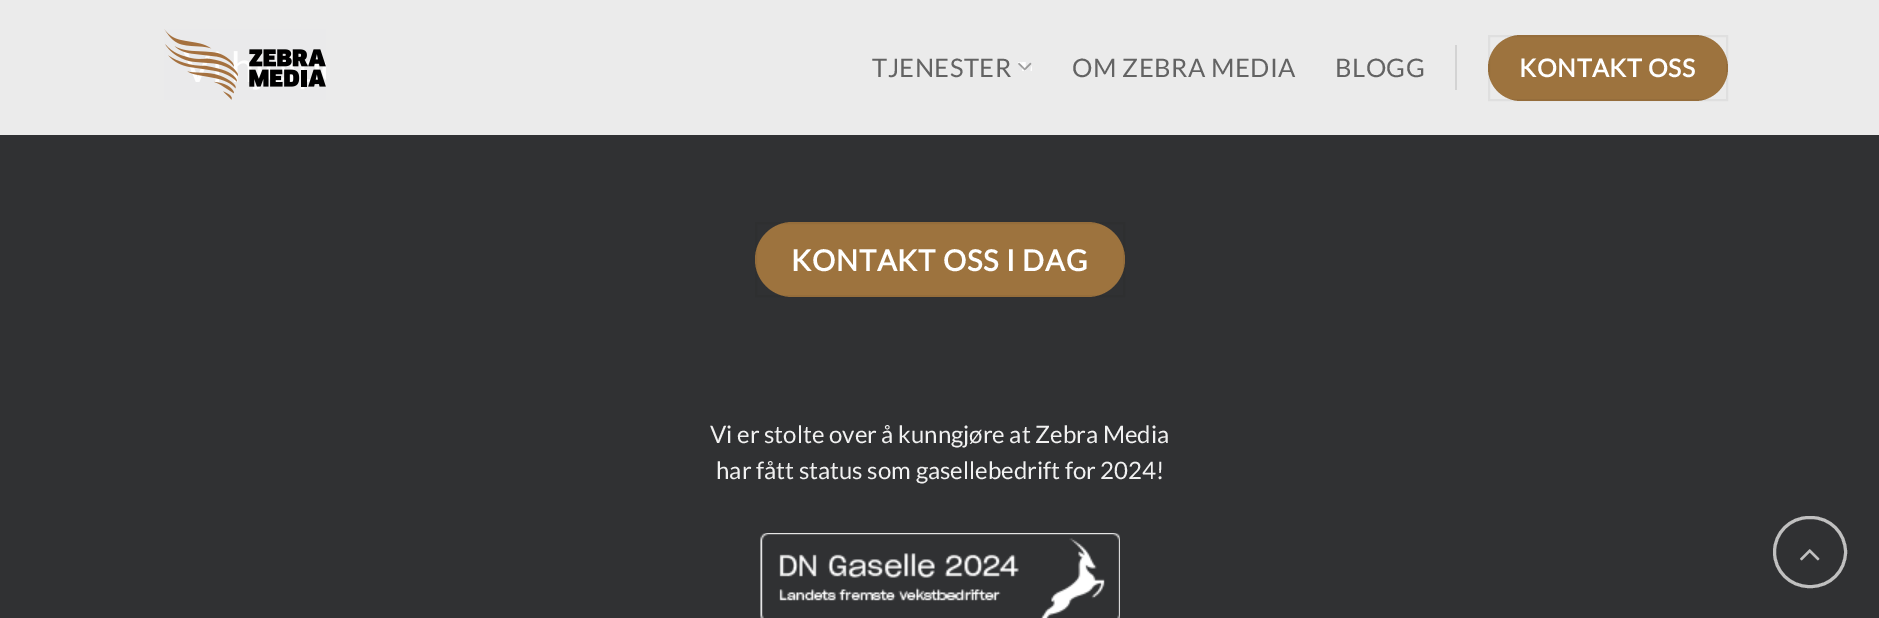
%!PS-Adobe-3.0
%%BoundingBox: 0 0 1879 618
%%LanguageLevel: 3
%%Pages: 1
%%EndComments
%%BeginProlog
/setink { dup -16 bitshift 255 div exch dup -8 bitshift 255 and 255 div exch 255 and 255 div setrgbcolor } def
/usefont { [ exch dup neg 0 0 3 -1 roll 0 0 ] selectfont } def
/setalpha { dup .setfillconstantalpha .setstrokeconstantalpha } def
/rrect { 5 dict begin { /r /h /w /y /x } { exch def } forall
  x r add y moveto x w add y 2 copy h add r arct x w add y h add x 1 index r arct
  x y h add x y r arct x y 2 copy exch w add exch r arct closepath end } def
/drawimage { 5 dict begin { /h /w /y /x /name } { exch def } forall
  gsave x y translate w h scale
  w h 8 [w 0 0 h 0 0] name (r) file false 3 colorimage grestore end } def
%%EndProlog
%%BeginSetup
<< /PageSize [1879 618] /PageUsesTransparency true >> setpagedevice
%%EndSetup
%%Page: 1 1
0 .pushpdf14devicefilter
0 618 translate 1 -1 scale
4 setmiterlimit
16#FFFFFF setink
0 0 1879 618 rectfill
16#303133 setink
0 -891 moveto 0 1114 lineto 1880 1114 lineto 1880 -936 lineto 1860 -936 lineto closepath fill
0.9 setalpha
16#FFFFFF setink
0 0 1879 135 rectfill
1 setalpha
(img1.raw) 164 29 162 71 drawimage
/Lato-Regular 25.5 usefont
16#636363 setink
872 77 moveto 0.5 0 (TJENESTER) ashow
(img2.raw) 1018 62 14 9 drawimage
1072 77 moveto 0.5 0 (OM ZEBRA MEDIA) ashow
1335 77 moveto 0.5 0 (BLOGG) ashow
0.1 setalpha
16#000000 setink
1455 45 2 45 rectfill
1 setalpha
16#9D733E setink
1488 35 240 66 33 rrect fill
0.05 setalpha
16#000000 setink
2 setlinewidth
1489 36 238 64 rectstroke
/Lato-Bold 24.75 usefont
1 setalpha
16#FFFFFF setink
1519 77 moveto 0.75 0 (KONTAKT OSS) ashow
16#9D733E setink
755 222 370 75 37.5 rrect fill
0.05 setalpha
16#000000 setink
756 223 368 73 rectstroke
/Lato-Bold 29.1 usefont
1 setalpha
16#FFFFFF setink
791 271 moveto 0.9 0 (KONTAKT OSS I DAG) ashow
/Lato-Regular 24 usefont
16#F1F1F1 setink
710 443 moveto (Vi er stolte over å kunngjøre at Zebra Media) show
716 479 moveto (har fått status som gasellebedrift for 2024!) show
(img3.raw) 760 533 360 85 drawimage
16#C0C0C0 setink
3 setlinewidth
1774.5 517.5 71 69 34.5 rrect stroke
(img4.raw) 1800 549 20 12 drawimage
.poppdf14devicefilter showpage
%%EOF
